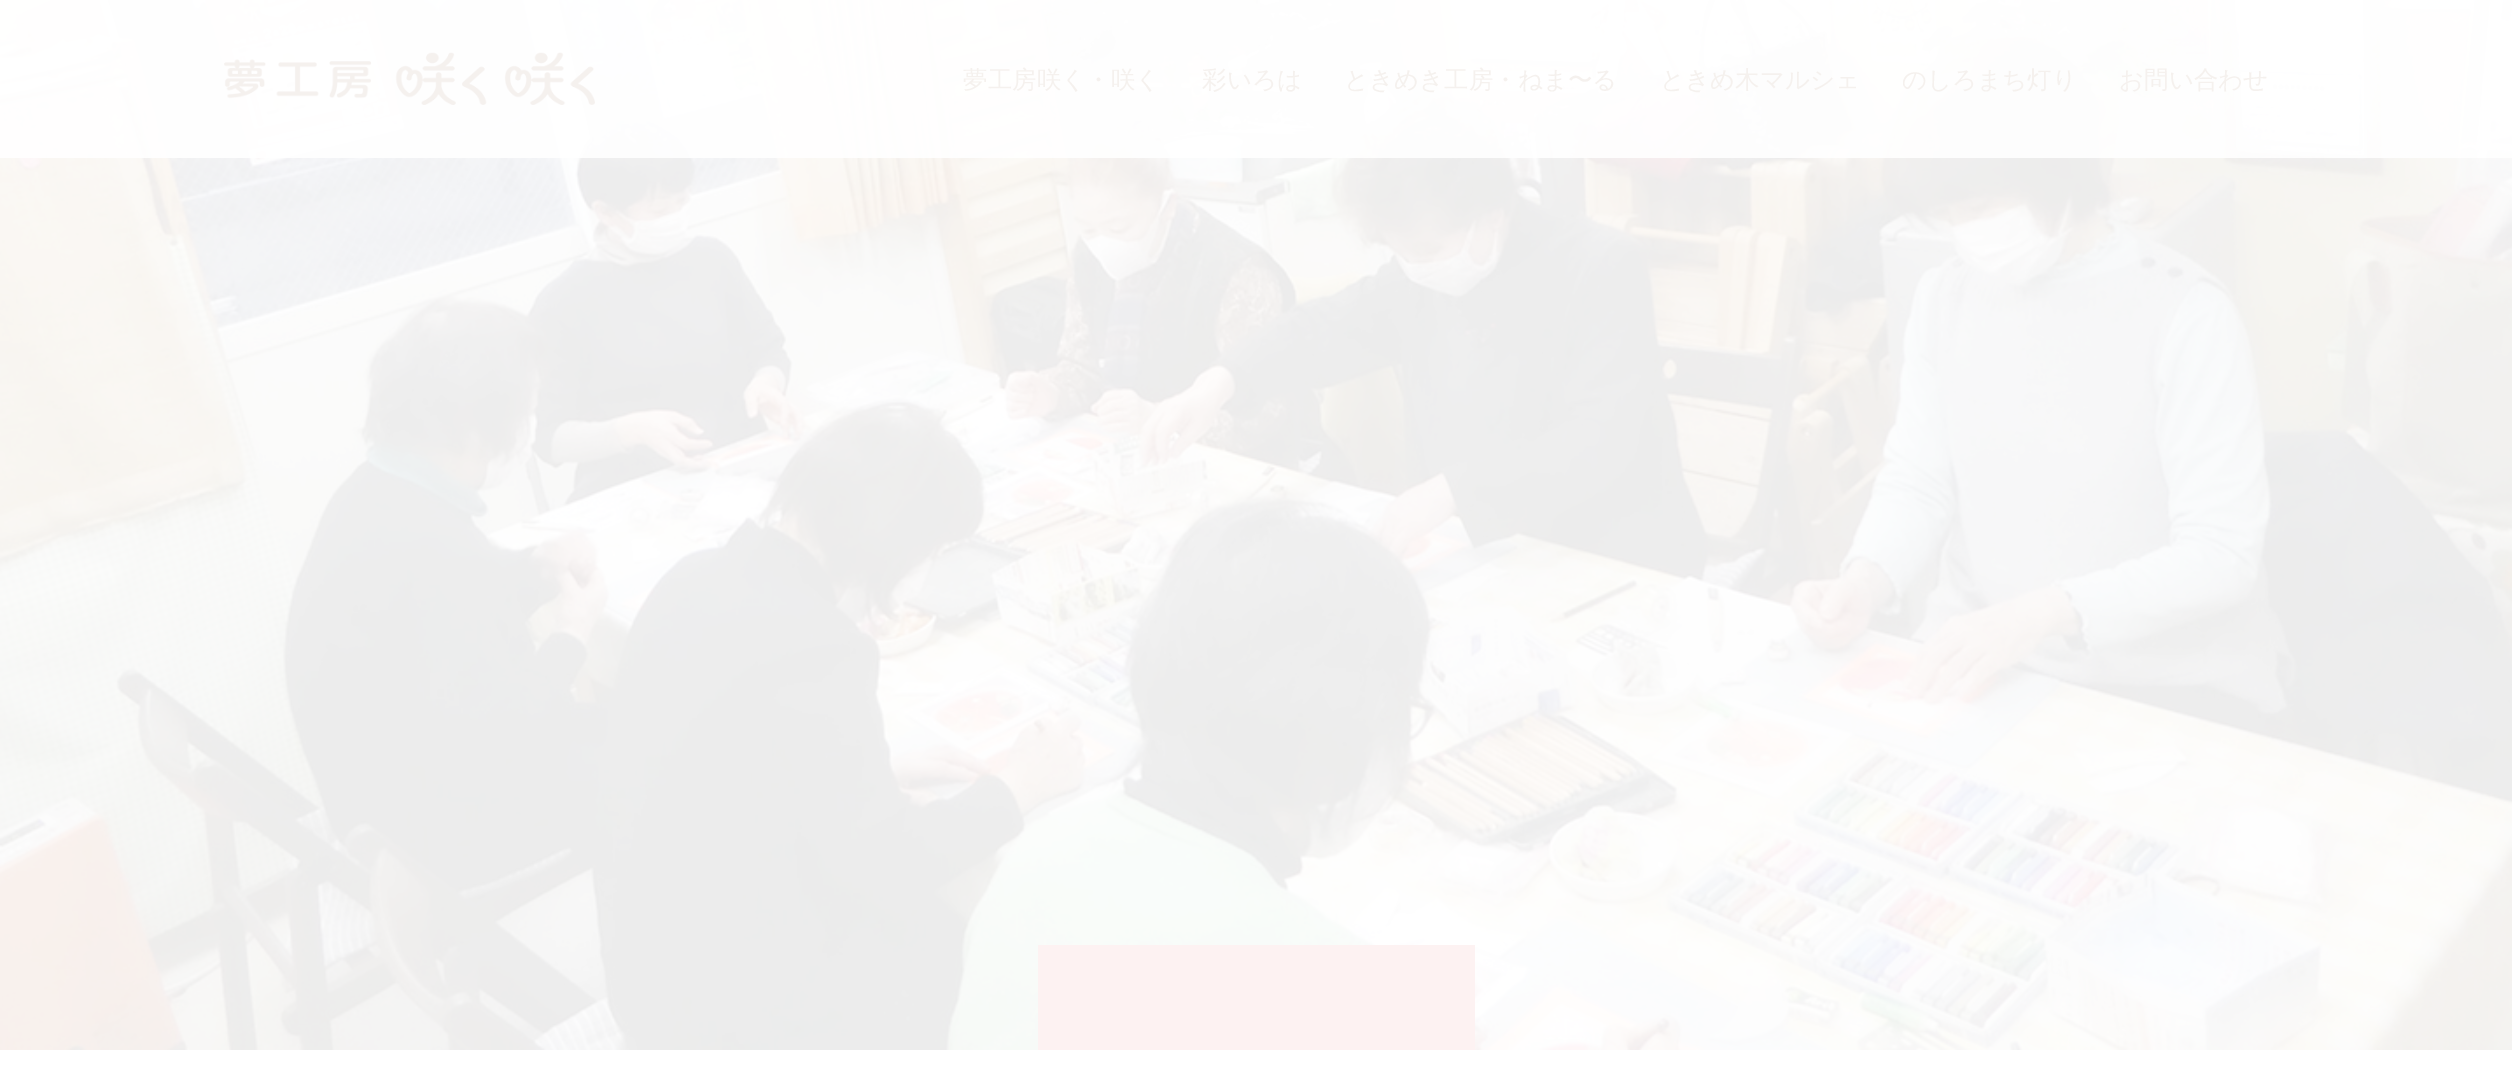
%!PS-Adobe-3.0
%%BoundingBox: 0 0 2512 1092
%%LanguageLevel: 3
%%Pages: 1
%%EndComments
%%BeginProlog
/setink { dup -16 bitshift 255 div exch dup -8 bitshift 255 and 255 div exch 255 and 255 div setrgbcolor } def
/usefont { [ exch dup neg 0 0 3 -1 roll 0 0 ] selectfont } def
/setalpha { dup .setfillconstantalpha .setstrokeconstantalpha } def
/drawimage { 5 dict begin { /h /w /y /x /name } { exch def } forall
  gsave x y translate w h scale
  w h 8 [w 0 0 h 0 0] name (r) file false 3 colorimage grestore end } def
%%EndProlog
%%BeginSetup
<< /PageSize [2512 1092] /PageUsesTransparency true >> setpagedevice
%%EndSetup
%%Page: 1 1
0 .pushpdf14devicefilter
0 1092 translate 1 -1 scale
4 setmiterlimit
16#FFFFFF setink
0 0 2512 1092 rectfill
(img1.raw) 0 0 2512 1050 drawimage
16#FDF2F2 setink
1038 945 437 105 rectfill
0.9 setalpha
16#FFFFFF setink
0 0 2512 158 rectfill
1 setalpha
(img2.raw) 224 52 371 53 drawimage
/WenQuanYiZenHei-Medium 24.5 usefont
16#F5F1EE setink
[
    [(夢工房咲く・咲く) 963 88]
    [(彩いろは) 1202 88]
    [(ときめき工房・ねま〜る) 1344 88]
    [(ときめ木マルシェ) 1660 88]
    [(のしろまち灯り) 1902 88]
    [(お問い合わせ) 2119 88]
] { aload pop moveto show } forall
.poppdf14devicefilter showpage
%%EOF
